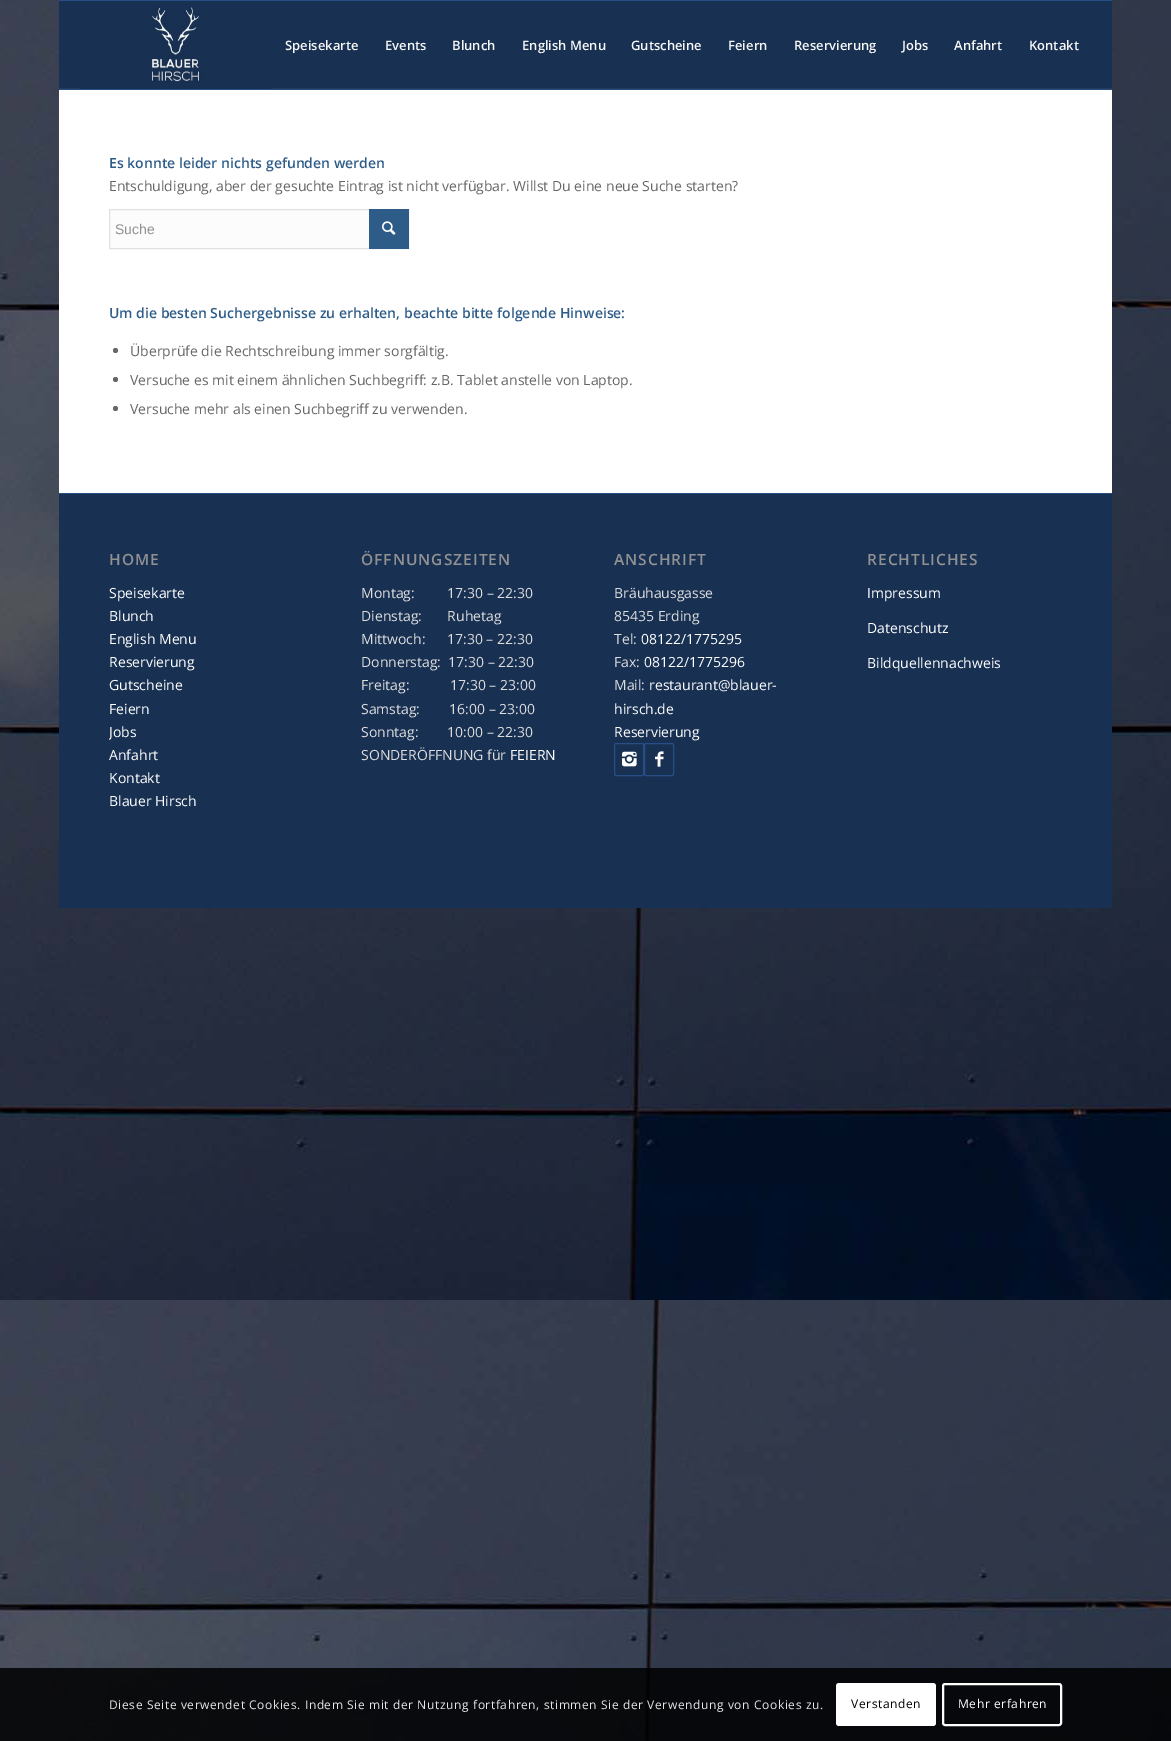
%!PS-Adobe-3.0
%%BoundingBox: 0 0 1171 1741
%%LanguageLevel: 3
%%Pages: 1
%%EndComments
%%BeginProlog
/setink { dup -16 bitshift 255 div exch dup -8 bitshift 255 and 255 div exch 255 and 255 div setrgbcolor } def
/usefont { [ exch dup neg 0 0 3 -1 roll 0 0 ] selectfont } def
/setalpha { dup .setfillconstantalpha .setstrokeconstantalpha } def
/disc { newpath 0 360 arc closepath } def
/rrect { 5 dict begin { /r /h /w /y /x } { exch def } forall
  x r add y moveto x w add y 2 copy h add r arct x w add y h add x 1 index r arct
  x y h add x y r arct x y 2 copy exch w add exch r arct closepath end } def
/drawimage { 5 dict begin { /h /w /y /x /name } { exch def } forall
  gsave x y translate w h scale
  w h 8 [w 0 0 h 0 0] name (r) file false 3 colorimage grestore end } def
%%EndProlog
%%BeginSetup
<< /PageSize [1171 1741] /PageUsesTransparency true >> setpagedevice
%%EndSetup
%%Page: 1 1
0 .pushpdf14devicefilter
0 1741 translate 1 -1 scale
4 setmiterlimit
16#FFFFFF setink
0 0 1171 1741 rectfill
(img1.raw) 0 0 1171 1741 drawimage
[
    [59 0 1053 1 16#274E85]
    [59 1 1053 907 16#183052]
    [59 89 1053 1 16#274E85]
    [59 88 1053 1 16#E1E1E1]
] { aload pop setink rectfill } forall
0.95 setalpha
[
    [59 88 1053 1 16#183052]
] { aload pop setink rectfill } forall
1 setalpha
(img2.raw) 80 6 191 83 drawimage
/OpenSans-SemiBold 13 usefont
16#F8F8F8 setink
[
    [(Speisekarte) 285 50]
    [(Events) 385 50]
    [(Blunch) 452 50]
    [(English Menu) 522 50]
    [(Gutscheine) 631 50]
    [(Feiern) 728 50]
    [(Reservierung) 794 50]
    [(Jobs) 902 50]
    [(Anfahrt) 954 50]
    [(Kontakt) 1029 50]
] { aload pop moveto show } forall
16#FFFFFF setink
59 90 1053 403 rectfill
/OpenSans-SemiBold 14 usefont
16#2D5C88 setink
109 168 moveto (Es konnte leider nichts gefunden werden) show
/OpenSans-Regular 14 usefont
16#666666 setink
109 191 moveto (Entschuldigung, aber der gesuchte Eintrag ist nicht verfügbar. Willst Du eine neue Suche starten?) show
16#FCFCFC setink
110 210 259 38 rectfill
16#E1E1E1 setink
109.5 209.5 299 39 rectstroke
/LiberationSans-Regular 14 usefont
16#919191 setink
115 234 moveto (Suche) show
16#2D5C88 setink
369 209 40 40 rectfill
(img3.raw) 382 221 14 14 drawimage
/OpenSans-SemiBold 14 usefont
109 318 moveto (Um die besten Suchergebnisse zu erhalten, beachte bitte folgende Hinweise:) show
16#666666 setink
115.5 350.5 2.5 disc fill
/OpenSans-Regular 14 usefont
130 356 moveto (Überprüfe die Rechtschreibung immer sorgfältig.) show
115.5 379.5 2.5 disc fill
130 385 moveto (Versuche es mit einem ähnlichen Suchbegriff: z.B. Tablet anstelle von Laptop.) show
115.5 408.5 2.5 disc fill
130 414 moveto (Versuche mehr als einen Suchbegriff zu verwenden.) show
16#274E85 setink
59 493 1053 1 rectfill
/OpenSans-SemiBold 15.5 usefont
16#919191 setink
109 565 moveto 1 0 (HOME) ashow
/OpenSans-Regular 14 usefont
16#FFFFFF setink
[
    [(Speisekarte) 109 598]
    [(Blunch) 109 621]
    [(English Menu) 109 644]
    [(Reservierung) 109 667]
    [(Gutscheine) 109 690]
    [(Feiern) 109 714]
] { aload pop moveto show } forall
gsave
109 539 195 285 rectclip
109 737 moveto (Jobs) show
grestore
[
    [(Anfahrt) 109 760]
    [(Kontakt) 109 783]
    [(Blauer Hirsch) 109 806]
] { aload pop moveto show } forall
/OpenSans-SemiBold 15.5 usefont
16#919191 setink
361 565 moveto 1 0 (ÖFFNUNGSZEITEN) ashow
/OpenSans-Regular 14 usefont
16#DDDDDD setink
[
    [(Montag:         17:30 – 22:30) 361 598]
    [(Dienstag:       Ruhetag) 361 621]
    [(Mittwoch:      17:30 – 22:30) 361 644]
    [(Donnerstag:  17:30 – 22:30) 361 667]
    [(Freitag:) 361 690]
    [(17:30 – 23:00) 450 690]
    [(Samstag:        16:00 – 23:00) 361 714]
    [(Sonntag:        10:00 – 22:30) 361 737]
    [(SONDERÖFFNUNG für) 361 760]
] { aload pop moveto show } forall
16#FFFFFF setink
510 760 moveto (FEIERN) show
/OpenSans-SemiBold 15.5 usefont
16#919191 setink
614 565 moveto 1 0 (ANSCHRIFT) ashow
/OpenSans-Regular 14 usefont
16#DDDDDD setink
[
    [(Bräuhausgasse) 614 598]
    [(85435 Erding) 614 621]
    [(Tel:) 614 644]
] { aload pop moveto show } forall
16#FFFFFF setink
641 644 moveto (08122/1775295) show
16#DDDDDD setink
614 667 moveto (Fax:) show
16#FFFFFF setink
644 667 moveto (08122/1775296) show
16#DDDDDD setink
614 690 moveto (Mail:) show
16#FFFFFF setink
[
    [(restaurant@blauer-) 649 690]
    [(hirsch.de) 614 714]
    [(Reservierung) 614 737]
] { aload pop moveto show } forall
16#274E85 setink
614.5 743.5 29 32 1.5 rrect stroke
(img4.raw) 622 751 15 16 drawimage
644.5 743.5 29 32 1.5 rrect stroke
(img5.raw) 655 751 9 16 drawimage
/OpenSans-SemiBold 15.5 usefont
16#919191 setink
867 565 moveto 1 0 (RECHTLICHES) ashow
/OpenSans-Regular 14 usefont
16#FFFFFF setink
[
    [(Impressum) 867 598]
    [(Datenschutz) 867 633]
    [(Bildquellennachweis) 867 668]
] { aload pop moveto show } forall
0.85 setalpha
16#000000 setink
0 1668 1171 73 rectfill
/OpenSans-Regular 12 usefont
1 setalpha
16#E6E6E7 setink
109 1709 moveto 0.6 0 (Diese Seite verwendet Cookies. Indem Sie mit der Nutzung fortfahren, stimmen Sie der Verwendung von Cookies zu.) ashow
16#FFFFFF setink
836 1683 100 43 3 rrect fill
16#000000 setink
851 1708 moveto 0.6 0 (Verstanden) ashow
16#FFFFFF setink
2 setlinewidth
943 1684 118 41 2 rrect stroke
958 1708 moveto 0.6 0 (Mehr erfahren) ashow
.poppdf14devicefilter showpage
%%EOF
